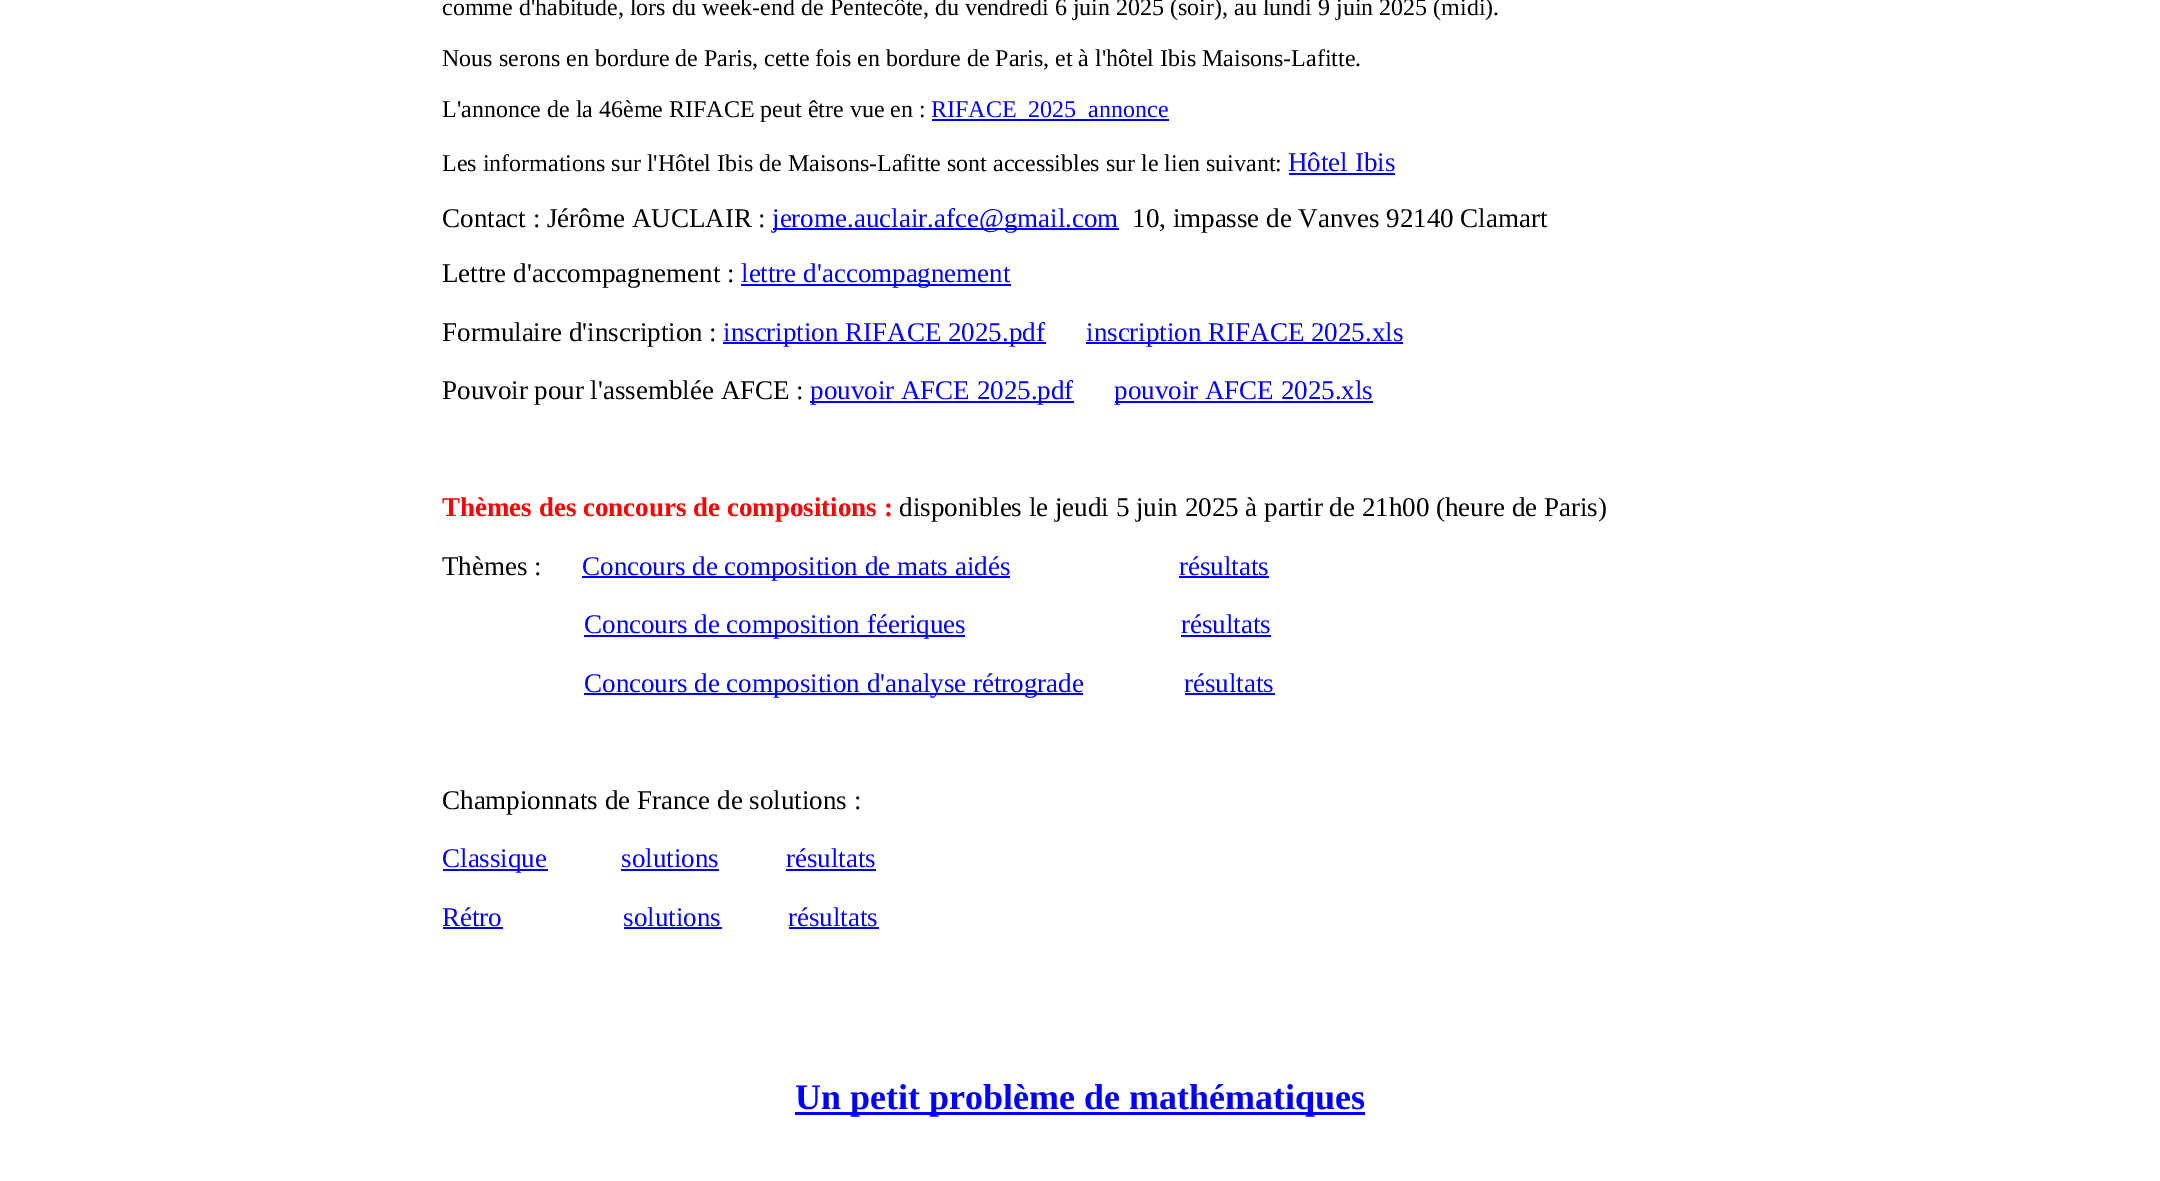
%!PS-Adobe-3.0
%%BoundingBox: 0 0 2160 1181
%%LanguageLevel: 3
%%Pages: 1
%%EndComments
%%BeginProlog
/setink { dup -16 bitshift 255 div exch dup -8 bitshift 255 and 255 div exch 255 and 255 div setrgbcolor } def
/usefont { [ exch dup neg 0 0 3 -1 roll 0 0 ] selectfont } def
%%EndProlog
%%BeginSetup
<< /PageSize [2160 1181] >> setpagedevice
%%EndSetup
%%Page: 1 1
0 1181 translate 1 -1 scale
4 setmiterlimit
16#FFFFFF setink
0 0 2160 1181 rectfill
/LiberationSerif-Regular 24 usefont
16#000000 setink
[
    [(comme d'habitude, lors du week-end de Pentecôte, du vendredi 6 juin 2025 \(soir\), au lundi 9 juin 2025 \(midi\).) 442 15]
    [(Nous serons en bordure de Paris, cette fois en bordure de Paris, et à l'hôtel Ibis Maisons-Lafitte.) 442 66]
    [(L'annonce de la 46ème RIFACE peut être vue en :) 442 117]
] { aload pop moveto show } forall
16#0000FF setink
932 119 237 2 rectfill
931 117 moveto (RIFACE_2025_annonce) show
16#000000 setink
442 171 moveto (Les informations sur l'Hôtel Ibis de Maisons-Lafitte sont accessibles sur le lien suivant:) show
/LiberationSerif-Regular 27 usefont
16#0000FF setink
1288 171 moveto (Hôtel Ibis) show
1289 173 106 2 rectfill
16#000000 setink
442 227 moveto (Contact : Jérôme AUCLAIR :) show
16#0000FF setink
773 228 346 2 rectfill
772 227 moveto (jerome.auclair.afce@gmail.com) show
16#000000 setink
1132 227 moveto (10, impasse de Vanves 92140 Clamart) show
442 282 moveto (Lettre d'accompagnement :) show
16#0000FF setink
741 284 270 2 rectfill
741 282 moveto (lettre d'accompagnement) show
16#000000 setink
442 341 moveto (Formulaire d'inscription :) show
16#0000FF setink
723 342 323 2 rectfill
723 341 moveto (inscription RIFACE 2025.pdf) show
1086 342 317 2 rectfill
1086 341 moveto (inscription RIFACE 2025.xls) show
16#000000 setink
442 399 moveto (Pouvoir pour l'assemblée AFCE :) show
16#0000FF setink
810 401 264 2 rectfill
810 399 moveto (pouvoir AFCE 2025.pdf) show
1115 401 258 2 rectfill
1114 399 moveto (pouvoir AFCE 2025.xls) show
/LiberationSerif-Bold 27 usefont
16#FF0000 setink
442 516 moveto (Thèmes des concours de compositions :) show
/LiberationSerif-Regular 27 usefont
16#000000 setink
899 516 moveto (disponibles le jeudi 5 juin 2025 à partir de 21h00 \(heure de Paris\)) show
442 575 moveto (Thèmes :) show
16#0000FF setink
582 576 428 2 rectfill
582 575 moveto (Concours de composition de mats aidés) show
1179 575 moveto (résultats) show
1179 576 90 2 rectfill
584 635 381 2 rectfill
584 633 moveto (Concours de composition féeriques) show
1181 633 moveto (résultats) show
1181 635 90 2 rectfill
584 693 499 2 rectfill
584 692 moveto (Concours de composition d'analyse rétrograde) show
1184 692 moveto (résultats) show
1185 693 90 2 rectfill
16#000000 setink
442 809 moveto (Championnats de France de solutions :) show
16#0000FF setink
443 869 105 2 rectfill
442 867 moveto (Classique) show
621 867 moveto (solutions) show
621 869 98 2 rectfill
786 867 moveto (résultats) show
786 869 90 2 rectfill
442 926 moveto (Rétro) show
443 927 60 2 rectfill
623 926 moveto (solutions) show
624 927 98 2 rectfill
788 926 moveto (résultats) show
789 927 90 2 rectfill
795 1112 570 3 rectfill
/LiberationSerif-Bold 36 usefont
795 1109 moveto (Un petit problème de mathématiques) show
showpage
%%EOF
